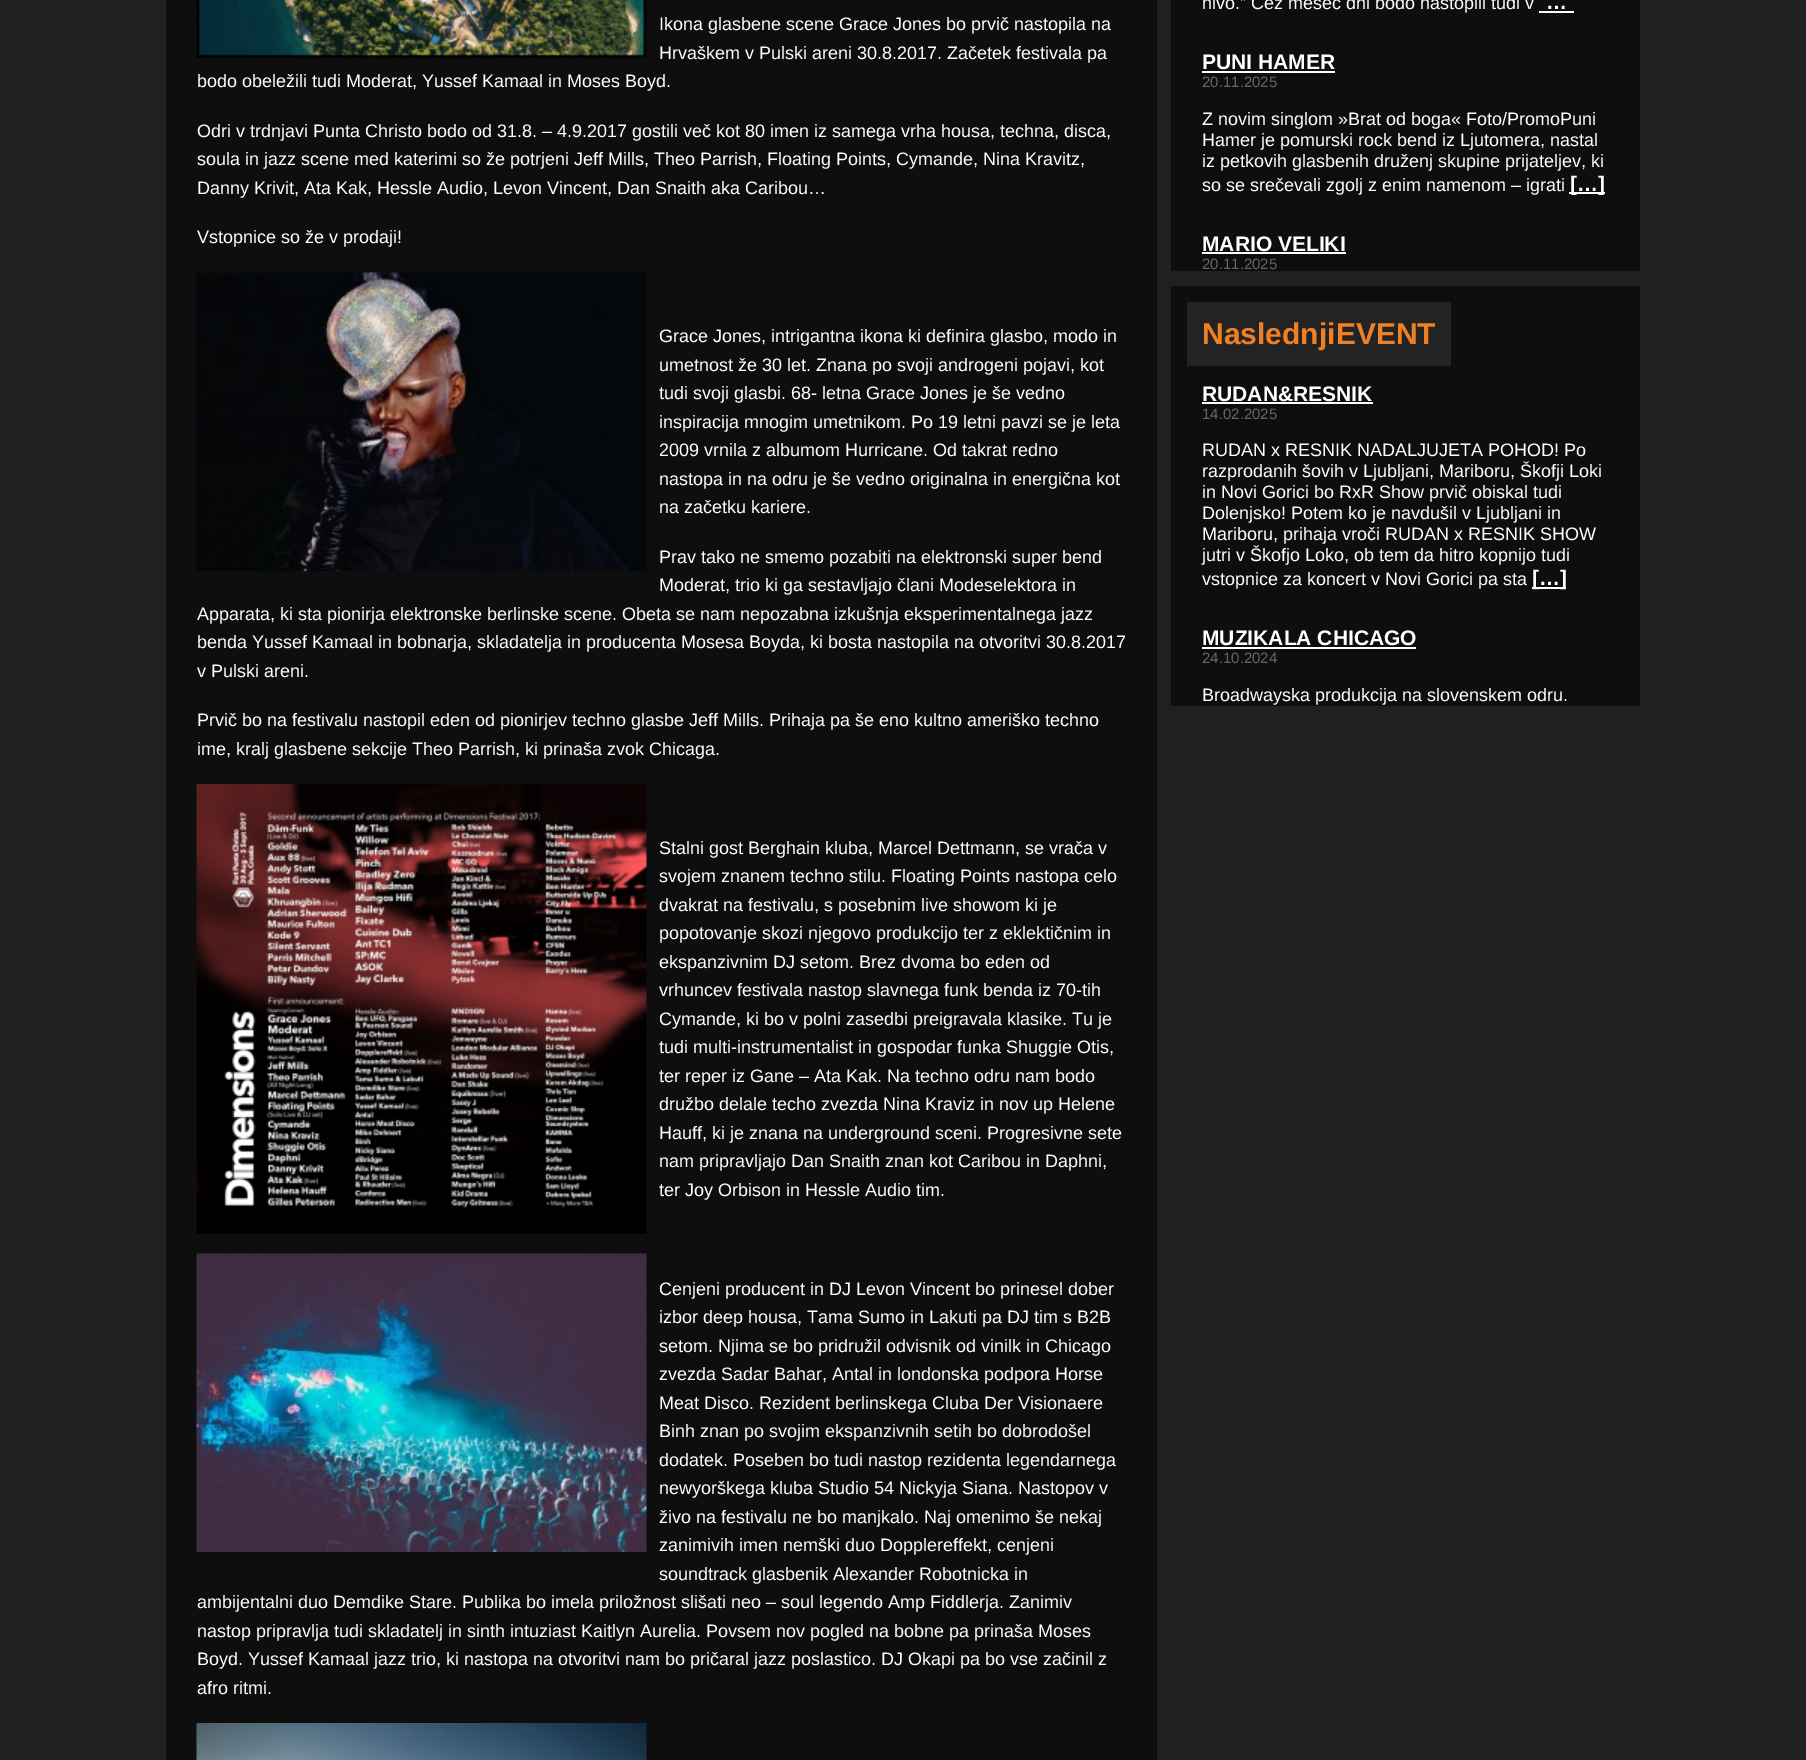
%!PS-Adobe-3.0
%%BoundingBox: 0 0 1806 1760
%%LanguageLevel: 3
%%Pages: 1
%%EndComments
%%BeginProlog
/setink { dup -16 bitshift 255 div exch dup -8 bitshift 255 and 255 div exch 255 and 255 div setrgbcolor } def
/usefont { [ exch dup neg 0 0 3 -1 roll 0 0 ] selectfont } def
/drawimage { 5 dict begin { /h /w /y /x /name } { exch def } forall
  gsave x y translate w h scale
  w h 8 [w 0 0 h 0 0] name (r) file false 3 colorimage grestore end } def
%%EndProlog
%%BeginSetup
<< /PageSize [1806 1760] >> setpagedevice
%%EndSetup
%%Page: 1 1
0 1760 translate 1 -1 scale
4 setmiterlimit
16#202020 setink
0 0 1806 1760 rectfill
16#0E0E0E setink
1171 0 469 271 rectfill
166 0 991 1760 rectfill
(img1.raw) 196 0 451 58 drawimage
/LiberationSans-Regular 18 usefont
16#FFFFFF setink
[
    [(Ikona glasbene scene Grace Jones bo prvič nastopila na) 659 30]
    [(Hrvaškem v Pulski areni 30.8.2017. Začetek festivala pa) 659 59]
    [(bodo obeležili tudi Moderat, Yussef Kamaal in Moses Boyd.) 197 87]
    [(Odri v trdnjavi Punta Christo bodo od 31.8. – 4.9.2017 gostili več kot 80 imen iz samega vrha housa, techna, disca,) 197 137]
    [(soula in jazz scene med katerimi so že potrjeni Jeff Mills, Theo Parrish, Floating Points, Cymande, Nina Kravitz,) 197 165]
    [(Danny Krivit, Ata Kak, Hessle Audio, Levon Vincent, Dan Snaith aka Caribou…) 197 194]
    [(Vstopnice so že v prodaji!) 197 243]
] { aload pop moveto show } forall
(img2.raw) 196 272 451 299 drawimage
[
    [(Grace Jones, intrigantna ikona ki definira glasbo, modo in) 659 342]
    [(umetnost že 30 let. Znana po svoji androgeni pojavi, kot) 659 371]
    [(tudi svoji glasbi. 68- letna Grace Jones je še vedno) 659 399]
    [(inspiracija mnogim umetnikom. Po 19 letni pavzi se je leta) 659 428]
    [(2009 vrnila z albumom Hurricane. Od takrat redno) 659 456]
    [(nastopa in na odru je še vedno originalna in energična kot) 659 485]
    [(na začetku kariere.) 659 513]
    [(Prav tako ne smemo pozabiti na elektronski super bend) 659 563]
    [(Moderat, trio ki ga sestavljajo člani Modeselektora in) 659 591]
    [(Apparata, ki sta pionirja elektronske berlinske scene. Obeta se nam nepozabna izkušnja eksperimentalnega jazz) 197 620]
    [(benda Yussef Kamaal in bobnarja, skladatelja in producenta Mosesa Boyda, ki bosta nastopila na otvoritvi 30.8.2017) 197 648]
    [(v Pulski areni.) 197 677]
    [(Prvič bo na festivalu nastopil eden od pionirjev techno glasbe Jeff Mills. Prihaja pa še eno kultno ameriško techno) 197 726]
    [(ime, kralj glasbene sekcije Theo Parrish, ki prinaša zvok Chicaga.) 197 755]
] { aload pop moveto show } forall
(img3.raw) 196 784 451 450 drawimage
[
    [(Stalni gost Berghain kluba, Marcel Dettmann, se vrača v) 659 854]
    [(svojem znanem techno stilu. Floating Points nastopa celo) 659 882]
    [(dvakrat na festivalu, s posebnim live showom ki je) 659 911]
    [(popotovanje skozi njegovo produkcijo ter z eklektičnim in) 659 939]
    [(ekspanzivnim DJ setom. Brez dvoma bo eden od) 659 968]
    [(vrhuncev festivala nastop slavnega funk benda iz 70-tih) 659 996]
    [(Cymande, ki bo v polni zasedbi preigravala klasike. Tu je) 659 1025]
    [(tudi multi-instrumentalist in gospodar funka Shuggie Otis,) 659 1053]
    [(ter reper iz Gane – Ata Kak. Na techno odru nam bodo) 659 1082]
    [(družbo delale techo zvezda Nina Kraviz in nov up Helene) 659 1110]
    [(Hauff, ki je znana na underground sceni. Progresivne sete) 659 1139]
    [(nam pripravljajo Dan Snaith znan kot Caribou in Daphni,) 659 1167]
    [(ter Joy Orbison in Hessle Audio tim.) 659 1196]
] { aload pop moveto show } forall
(img4.raw) 196 1253 451 299 drawimage
[
    [(Cenjeni producent in DJ Levon Vincent bo prinesel dober) 659 1295]
    [(izbor deep housa, Tama Sumo in Lakuti pa DJ tim s B2B) 659 1323]
    [(setom. Njima se bo pridružil odvisnik od vinilk in Chicago) 659 1352]
    [(zvezda Sadar Bahar, Antal in londonska podpora Horse) 659 1380]
    [(Meat Disco. Rezident berlinskega Cluba Der Visionaere) 659 1409]
    [(Binh znan po svojim ekspanzivnih setih bo dobrodošel) 659 1437]
    [(dodatek. Poseben bo tudi nastop rezidenta legendarnega) 659 1466]
    [(newyorškega kluba Studio 54 Nickyja Siana. Nastopov v) 659 1494]
    [(živo na festivalu ne bo manjkalo. Naj omenimo še nekaj) 659 1523]
    [(zanimivih imen nemški duo Dopplereffekt, cenjeni) 659 1551]
    [(soundtrack glasbenik Alexander Robotnicka in) 659 1580]
    [(ambijentalni duo Demdike Stare. Publika bo imela priložnost slišati neo – soul legendo Amp Fiddlerja. Zanimiv) 197 1608]
    [(nastop pripravlja tudi skladatelj in sinth intuziast Kaitlyn Aurelia. Povsem nov pogled na bobne pa prinaša Moses) 197 1637]
    [(Boyd. Yussef Kamaal jazz trio, ki nastopa na otvoritvi nam bo pričaral jazz poslastico. DJ Okapi pa bo vse začinil z) 197 1665]
    [(afro ritmi.) 197 1694]
] { aload pop moveto show } forall
(img5.raw) 196 1723 451 37 drawimage
1202 9 moveto (nivo.” Čez mesec dni bodo nastopili tudi v) show
/LiberationSans-Bold 21 usefont
1546 9 moveto (…) show
1539 11 35 2 rectfill
1202 69 moveto (PUNI HAMER) show
1202 71 133 2 rectfill
/LiberationSans-Regular 15 usefont
16#666666 setink
1202 87 moveto (20.11.2025) show
/LiberationSans-Regular 18 usefont
16#FFFFFF setink
[
    [(Z novim singlom »Brat od boga« Foto/PromoPuni) 1202 125]
    [(Hamer je pomurski rock bend iz Ljutomera, nastal) 1202 146]
    [(iz petkovih glasbenih druženj skupine prijateljev, ki) 1202 167]
    [(so se srečevali zgolj z enim namenom – igrati) 1202 191]
] { aload pop moveto show } forall
1569 192 36 2 rectfill
gsave
1202 50 408 145 rectclip
/LiberationSans-Bold 21 usefont
1570 191 moveto ([…]) show
grestore
/LiberationSans-Bold 21 usefont
1202 251 moveto (MARIO VELIKI) show
1202 252 144 2 rectfill
/LiberationSans-Regular 15 usefont
16#666666 setink
1202 269 moveto (20.11.2025) show
16#0E0E0E setink
1171 286 469 420 rectfill
16#232323 setink
1187 302 264 64 rectfill
/LiberationSans-Bold 30 usefont
16#F17F23 setink
1202 344 moveto -8 0 32 (Naslednji EVENT) widthshow
/LiberationSans-Bold 21 usefont
16#FFFFFF setink
1202 401 moveto (RUDAN&RESNIK) show
1202 402 171 2 rectfill
/LiberationSans-Regular 15 usefont
16#666666 setink
1202 419 moveto (14.02.2025) show
/LiberationSans-Regular 18 usefont
16#FFFFFF setink
[
    [(RUDAN x RESNIK NADALJUJETA POHOD! Po) 1202 456]
    [(razprodanih šovih v Ljubljani, Mariboru, Škofji Loki) 1202 477]
    [(in Novi Gorici bo RxR Show prvič obiskal tudi) 1202 498]
    [(Dolenjsko! Potem ko je navdušil v Ljubljani in) 1202 519]
    [(Mariboru, prihaja vroči RUDAN x RESNIK SHOW) 1202 540]
    [(jutri v Škofjo Loko, ob tem da hitro kopnijo tudi) 1202 561]
    [(vstopnice za koncert v Novi Gorici pa sta) 1202 585]
] { aload pop moveto show } forall
1532 587 34 2 rectfill
/LiberationSans-Bold 21 usefont
1532 585 moveto ([…]) show
1202 645 moveto (MUZIKALA CHICAGO) show
1202 647 214 2 rectfill
/LiberationSans-Regular 15 usefont
16#666666 setink
1202 663 moveto (24.10.2024) show
/LiberationSans-Regular 18 usefont
16#FFFFFF setink
1202 701 moveto (Broadwayska produkcija na slovenskem odru.) show
showpage
%%EOF
